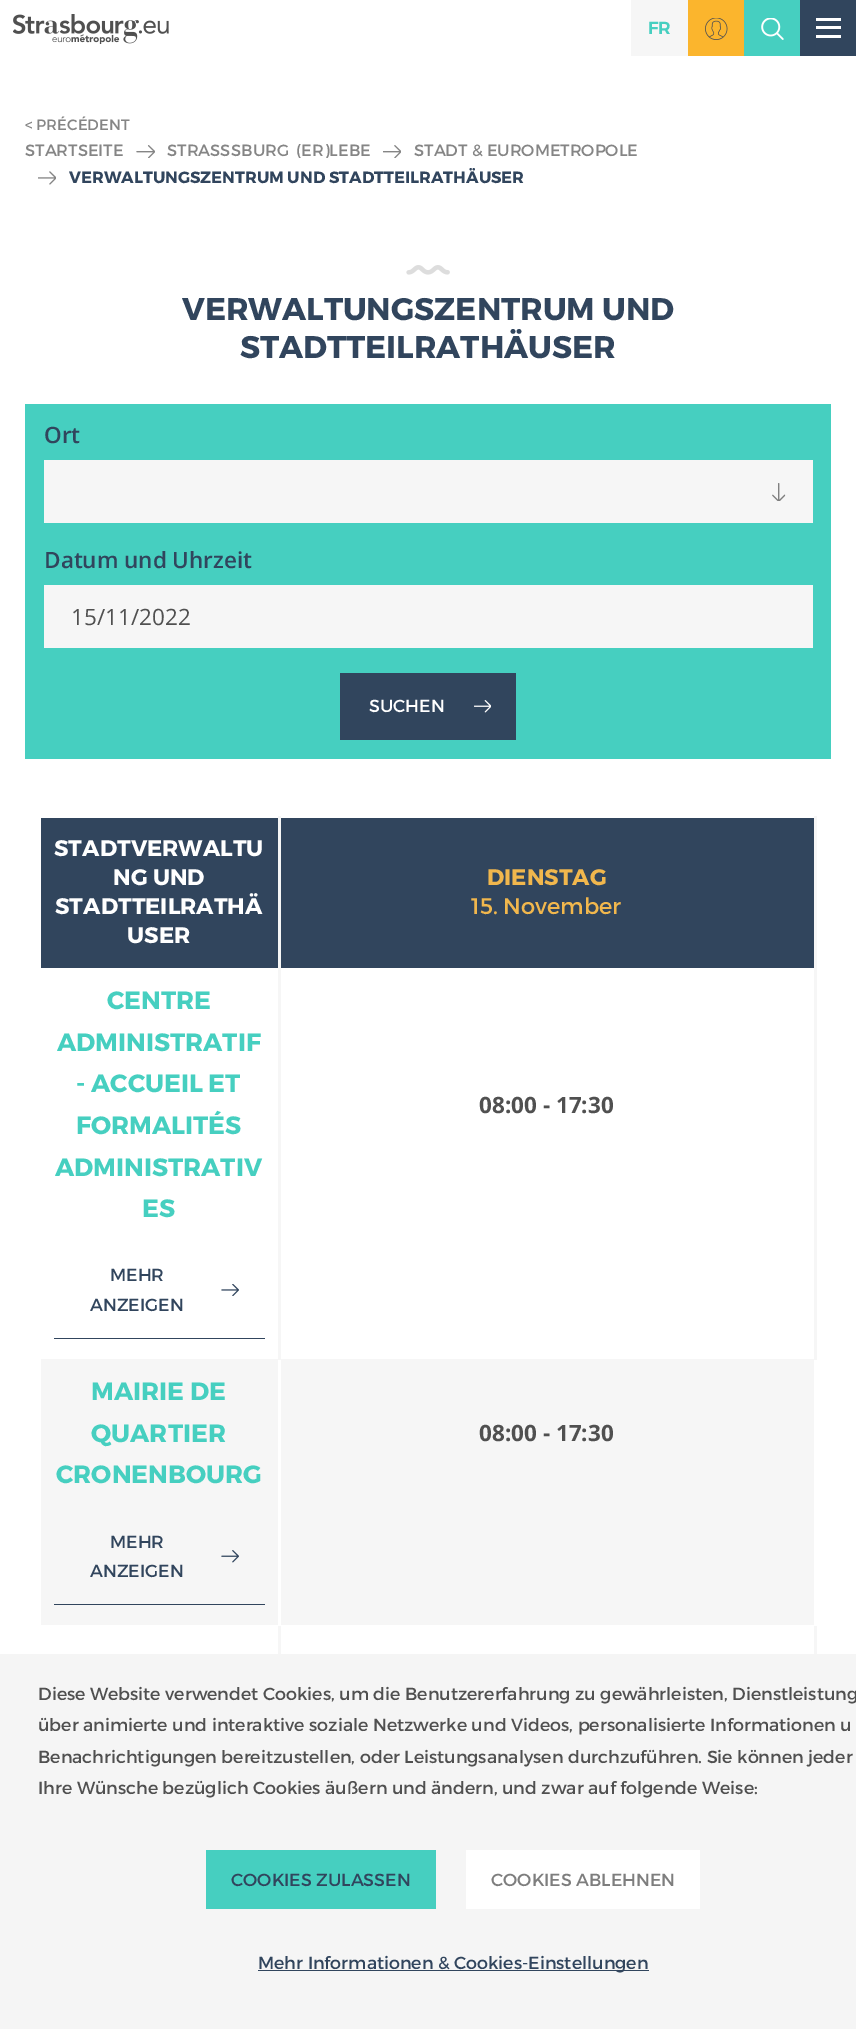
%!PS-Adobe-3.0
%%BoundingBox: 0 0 856 2029
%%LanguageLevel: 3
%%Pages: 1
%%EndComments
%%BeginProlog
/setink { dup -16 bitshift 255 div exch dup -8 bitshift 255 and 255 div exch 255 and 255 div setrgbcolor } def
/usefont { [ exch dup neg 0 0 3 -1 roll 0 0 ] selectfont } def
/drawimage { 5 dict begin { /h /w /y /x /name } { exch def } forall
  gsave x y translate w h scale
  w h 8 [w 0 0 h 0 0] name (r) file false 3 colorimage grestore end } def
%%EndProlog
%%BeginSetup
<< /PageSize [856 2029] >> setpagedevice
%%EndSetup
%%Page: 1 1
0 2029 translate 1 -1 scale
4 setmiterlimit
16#FFFFFF setink
0 0 856 2029 rectfill
(img1.raw) 13 14 156 30 drawimage
16#F6F6F6 setink
631 0 57 56 rectfill
/Montserrat-SemiBold 17.5 usefont
16#46CFC0 setink
648 34 moveto (FR) show
16#FBB52D setink
688 0 56 56 rectfill
(img2.raw) 705 18 23 22 drawimage
16#46CFC0 setink
744 0 56 56 rectfill
(img3.raw) 761 18 23 22 drawimage
[
    [800 0 56 56 16#31455D]
    [816 18 25 3 16#FFFFFF]
    [816 26 25 3 16#FFFFFF]
    [816 35 25 3 16#FFFFFF]
] { aload pop setink rectfill } forall
/Montserrat-Regular 15 usefont
16#858585 setink
25 130 moveto (< PRÉCÉDENT) show
/Montserrat-Regular 16.25 usefont
25 156 moveto (STARTSEITE) show
(img4.raw) 136 145 19 13 drawimage
167 156 moveto (STRASS) show
231 156 moveto 3 0 32 (SBURG \(ER\)LEBE) widthshow
(img5.raw) 383 145 18 13 drawimage
414 156 moveto (STADT & EUROMETROPOLE) show
(img6.raw) 38 171 18 14 drawimage
/Montserrat-Bold 16.25 usefont
16#31455D setink
69 183 moveto (VERWALTUNGSZENTRUM UND STADTTEILRATHÄUSER) show
(img7.raw) 406 265 44 10 drawimage
/Montserrat-Bold 31.25 usefont
182 320 moveto (VERWALTUNGSZENTRUM UND) show
240 358 moveto (STADTTEILRATHÄUSER) show
16#46CFC0 setink
25 404 806 355 rectfill
/OpenSans-SemiBold 22.5 usefont
16#31455D setink
44 443 moveto (Ort) show
16#F6F6F6 setink
44 460 769 63 rectfill
(img8.raw) 772 483 14 18 drawimage
16#31455D setink
44 568 moveto (Datum und Uhrzeit) show
16#F6F6F6 setink
44 585 769 63 rectfill
/OpenSans-Regular 22.5 usefont
16#505050 setink
71 625 moveto (15/11/2022) show
16#31455D setink
340 673 176 67 rectfill
/Montserrat-Regular 17.5 usefont
16#FFFFFF setink
369 712 moveto (SUCHEN) show
(img9.raw) 474 700 17 13 drawimage
16#31455D setink
41 818 773 150 rectfill
/Montserrat-Bold 22.5 usefont
16#FFFFFF setink
[
    [(STADTVERWALTU) 54 856]
    [(NG UND) 113 885]
    [(STADTTEILRATHÄ) 55 914]
    [(USER) 127 943]
] { aload pop moveto show } forall
16#F1B74D setink
487 885 moveto (DIENSTAG) show
/Montserrat-Regular 22.5 usefont
471 914 moveto (15. November) show
/Montserrat-Bold 25 usefont
16#46CFC0 setink
[
    [(CENTRE) 107 1009]
    [(ADMINISTRATIF) 57 1051]
    [(- ACCUEIL ET) 76 1092]
    [(FORMALITÉS) 76 1134]
    [(ADMINISTRATIV) 55 1176]
    [(ES) 142 1217]
] { aload pop moveto show } forall
/OpenSans-Bold 22.5 usefont
16#505050 setink
479 1113 moveto (08:00 - 17:30) show
[
    [41 1359 773 266 16#F6F6F6]
    [278 1624 3 30 16#F6F6F6]
    [278 1358 3 268 16#FFFFFF]
    [278 816 3 544 16#F6F6F6]
] { aload pop setink rectfill } forall
/Montserrat-Regular 17.5 usefont
16#31455D setink
110 1281 moveto (MEHR) show
90 1311 moveto (ANZEIGEN) show
(img10.raw) 221 1284 18 12 drawimage
54 1338 211 1 rectfill
16#F6F6F6 setink
814 816 3 544 rectfill
/Montserrat-Bold 25 usefont
16#46CFC0 setink
[
    [(MAIRIE DE) 91 1400]
    [(QUARTIER) 91 1442]
    [(CRONENBOURG) 56 1483]
] { aload pop moveto show } forall
/OpenSans-Bold 22.5 usefont
16#505050 setink
479 1441 moveto (08:00 - 17:30) show
/Montserrat-Regular 17.5 usefont
16#31455D setink
110 1548 moveto (MEHR) show
90 1577 moveto (ANZEIGEN) show
(img11.raw) 221 1550 18 13 drawimage
[
    [54 1604 211 1 16#31455D]
    [814 1624 3 30 16#F6F6F6]
    [814 1624 3 2 16#FFFFFF]
    [0 1654 856 375 16#F5F5F5]
] { aload pop setink rectfill } forall
16#505050 setink
[
    [(Diese Website verwendet Cookies, um die Benutzererfahrung zu gewährleisten, Dienstleistung) 38 1700]
    [(über animierte und interaktive soziale Netzwerke und Videos, personalisierte Informationen u) 38 1731]
    [(Benachrichtigungen bereitzustellen, oder Leistungsanalysen durchzuführen. Sie können jeder) 38 1763]
    [(Ihre Wünsche bezüglich Cookies äußern und ändern, und zwar auf folgende Weise:) 38 1794]
] { aload pop moveto show } forall
16#46CFC0 setink
206 1850 230 59 rectfill
16#31455D setink
231 1886 moveto (COOKIES ZULASSEN) show
16#FFFFFF setink
466 1850 234 59 rectfill
16#7E7E7E setink
491 1886 moveto (COOKIES ABLEHNEN) show
16#31455D setink
258 1970 391 1 rectfill
258 1969 moveto (Mehr Informationen & Cookies-Einstellungen) show
showpage
%%EOF
